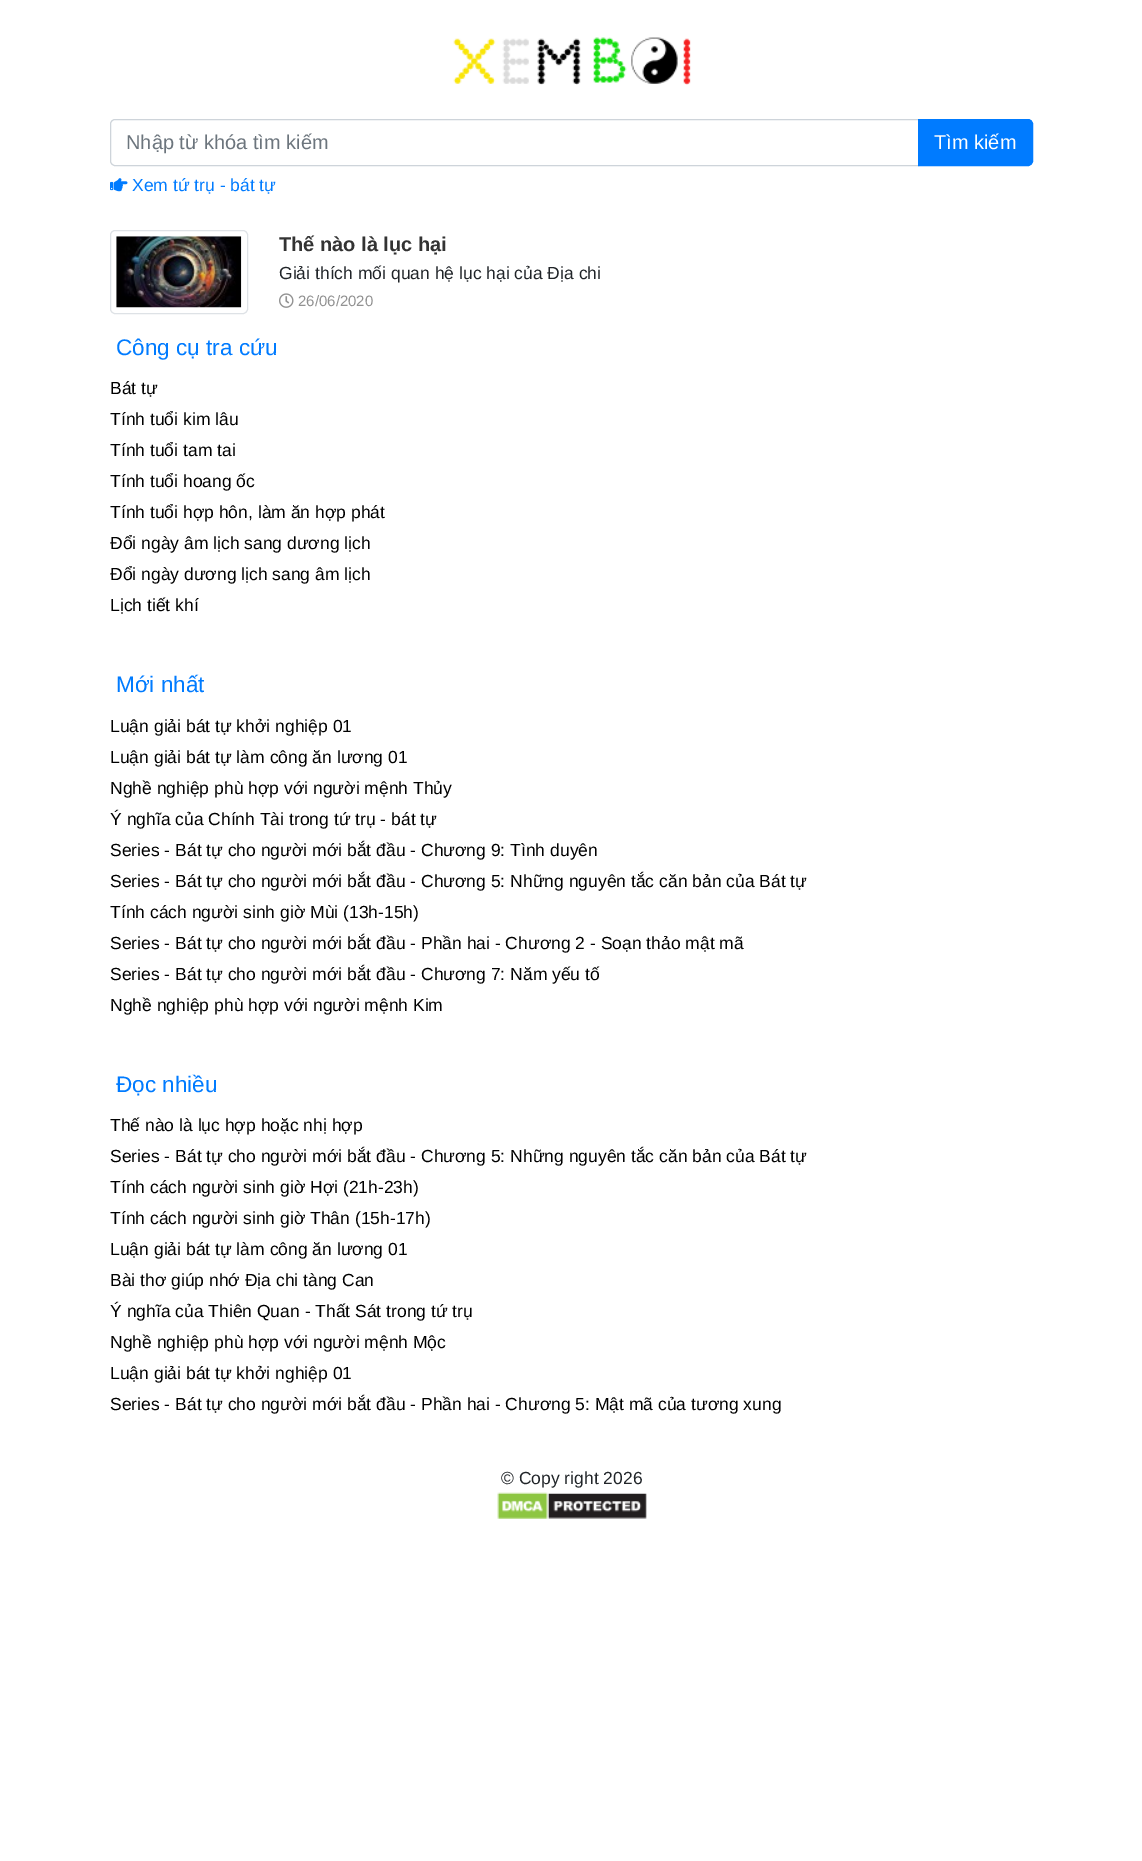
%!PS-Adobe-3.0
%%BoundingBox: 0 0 1142 1861
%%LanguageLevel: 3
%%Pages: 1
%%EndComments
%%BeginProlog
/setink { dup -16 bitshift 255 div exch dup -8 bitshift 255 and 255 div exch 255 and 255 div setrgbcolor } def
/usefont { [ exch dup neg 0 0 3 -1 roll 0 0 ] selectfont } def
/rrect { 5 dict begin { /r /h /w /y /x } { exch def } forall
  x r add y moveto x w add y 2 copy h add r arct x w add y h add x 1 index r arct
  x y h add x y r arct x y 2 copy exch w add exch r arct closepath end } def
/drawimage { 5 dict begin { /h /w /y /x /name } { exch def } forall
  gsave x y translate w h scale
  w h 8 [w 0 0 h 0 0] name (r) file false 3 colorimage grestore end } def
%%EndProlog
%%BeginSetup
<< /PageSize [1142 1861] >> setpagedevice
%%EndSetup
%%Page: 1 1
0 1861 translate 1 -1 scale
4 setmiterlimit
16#FFFFFF setink
0 0 1142 1861 rectfill
(img1.raw) 453 37 238 48 drawimage
16#CED4DA setink
115 119.5 moveto 918.5 119.5 lineto 918.5 165.5 lineto 115 165.5 lineto 112.5 165.5 110.5 163.5 110.5 161 curveto 110.5 124 lineto 110.5 121.5 112.5 119.5 115 119.5 curveto closepath stroke
/LiberationSans-Regular 20 usefont
16#6C757D setink
126 149 moveto (Nhập từ khóa tìm kiếm) show
16#007BFF setink
918.5 119.5 moveto 1028 119.5 lineto 1030.5 119.5 1032.5 121.5 1032.5 124 curveto 1032.5 161 lineto 1032.5 163.5 1030.5 165.5 1028 165.5 curveto 918.5 165.5 lineto closepath gsave fill grestore
stroke
16#FFFFFF setink
934 149 moveto (Tìm kiếm) show
(img2.raw) 110 178 18 14 drawimage
/LiberationSans-Regular 17.5 usefont
16#007BFF setink
132 191 moveto (Xem tứ trụ - bát tự) show
16#DEE2E6 setink
110.5 230.5 137 83 4.5 rrect stroke
(img3.raw) 116 236 126 72 drawimage
/LiberationSans-Bold 20 usefont
16#333333 setink
279 251 moveto (Thế nào là lục hại) show
/LiberationSans-Regular 17.5 usefont
16#212529 setink
279 279 moveto (Giải thích mối quan hệ lục hại của Địa chi) show
(img4.raw) 279 293 15 15 drawimage
/LiberationSans-Regular 15 usefont
16#929292 setink
298 306 moveto (26/06/2020) show
/LiberationSans-Regular 22.5 usefont
16#007BFF setink
116 355 moveto (Công cụ tra cứu) show
/LiberationSans-Regular 17.5 usefont
16#000000 setink
[
    [(Bát tự) 110 394]
    [(Tính tuổi kim lâu) 110 425]
    [(Tính tuổi tam tai) 110 456]
    [(Tính tuổi hoang ốc) 110 487]
    [(Tính tuổi hợp hôn, làm ăn hợp phát) 110 518]
    [(Đổi ngày âm lịch sang dương lịch) 110 549]
    [(Đổi ngày dương lịch sang âm lịch) 110 580]
    [(Lịch tiết khí) 110 611]
] { aload pop moveto show } forall
/LiberationSans-Regular 22.5 usefont
16#007BFF setink
116 692 moveto (Mới nhất) show
/LiberationSans-Regular 17.5 usefont
16#000000 setink
[
    [(Luận giải bát tự khởi nghiệp 01) 110 732]
    [(Luận giải bát tự làm công ăn lương 01) 110 763]
    [(Nghề nghiệp phù hợp với người mệnh Thủy) 110 794]
    [(Ý nghĩa của Chính Tài trong tứ trụ - bát tự) 110 825]
    [(Series - Bát tự cho người mới bắt đầu - Chương 9: Tình duyên) 110 856]
    [(Series - Bát tự cho người mới bắt đầu - Chương 5: Những nguyên tắc căn bản của Bát tự) 110 887]
    [(Tính cách người sinh giờ Mùi \(13h-15h\)) 110 918]
    [(Series - Bát tự cho người mới bắt đầu - Phần hai - Chương 2 - Soạn thảo mật mã) 110 949]
    [(Series - Bát tự cho người mới bắt đầu - Chương 7: Năm yếu tố) 110 980]
    [(Nghề nghiệp phù hợp với người mệnh Kim) 110 1011]
] { aload pop moveto show } forall
/LiberationSans-Regular 22.5 usefont
16#007BFF setink
116 1092 moveto (Đọc nhiều) show
/LiberationSans-Regular 17.5 usefont
16#000000 setink
[
    [(Thế nào là lục hợp hoặc nhị hợp) 110 1131]
    [(Series - Bát tự cho người mới bắt đầu - Chương 5: Những nguyên tắc căn bản của Bát tự) 110 1162]
    [(Tính cách người sinh giờ Hợi \(21h-23h\)) 110 1193]
    [(Tính cách người sinh giờ Thân \(15h-17h\)) 110 1224]
    [(Luận giải bát tự làm công ăn lương 01) 110 1255]
    [(Bài thơ giúp nhớ Địa chi tàng Can) 110 1286]
    [(Ý nghĩa của Thiên Quan - Thất Sát trong tứ trụ) 110 1317]
    [(Nghề nghiệp phù hợp với người mệnh Mộc) 110 1348]
    [(Luận giải bát tự khởi nghiệp 01) 110 1379]
    [(Series - Bát tự cho người mới bắt đầu - Phần hai - Chương 5: Mật mã của tương xung) 110 1410]
] { aload pop moveto show } forall
16#212529 setink
501 1484 moveto (© Copy right 2026) show
(img5.raw) 497 1492 150 27 drawimage
showpage
%%EOF
